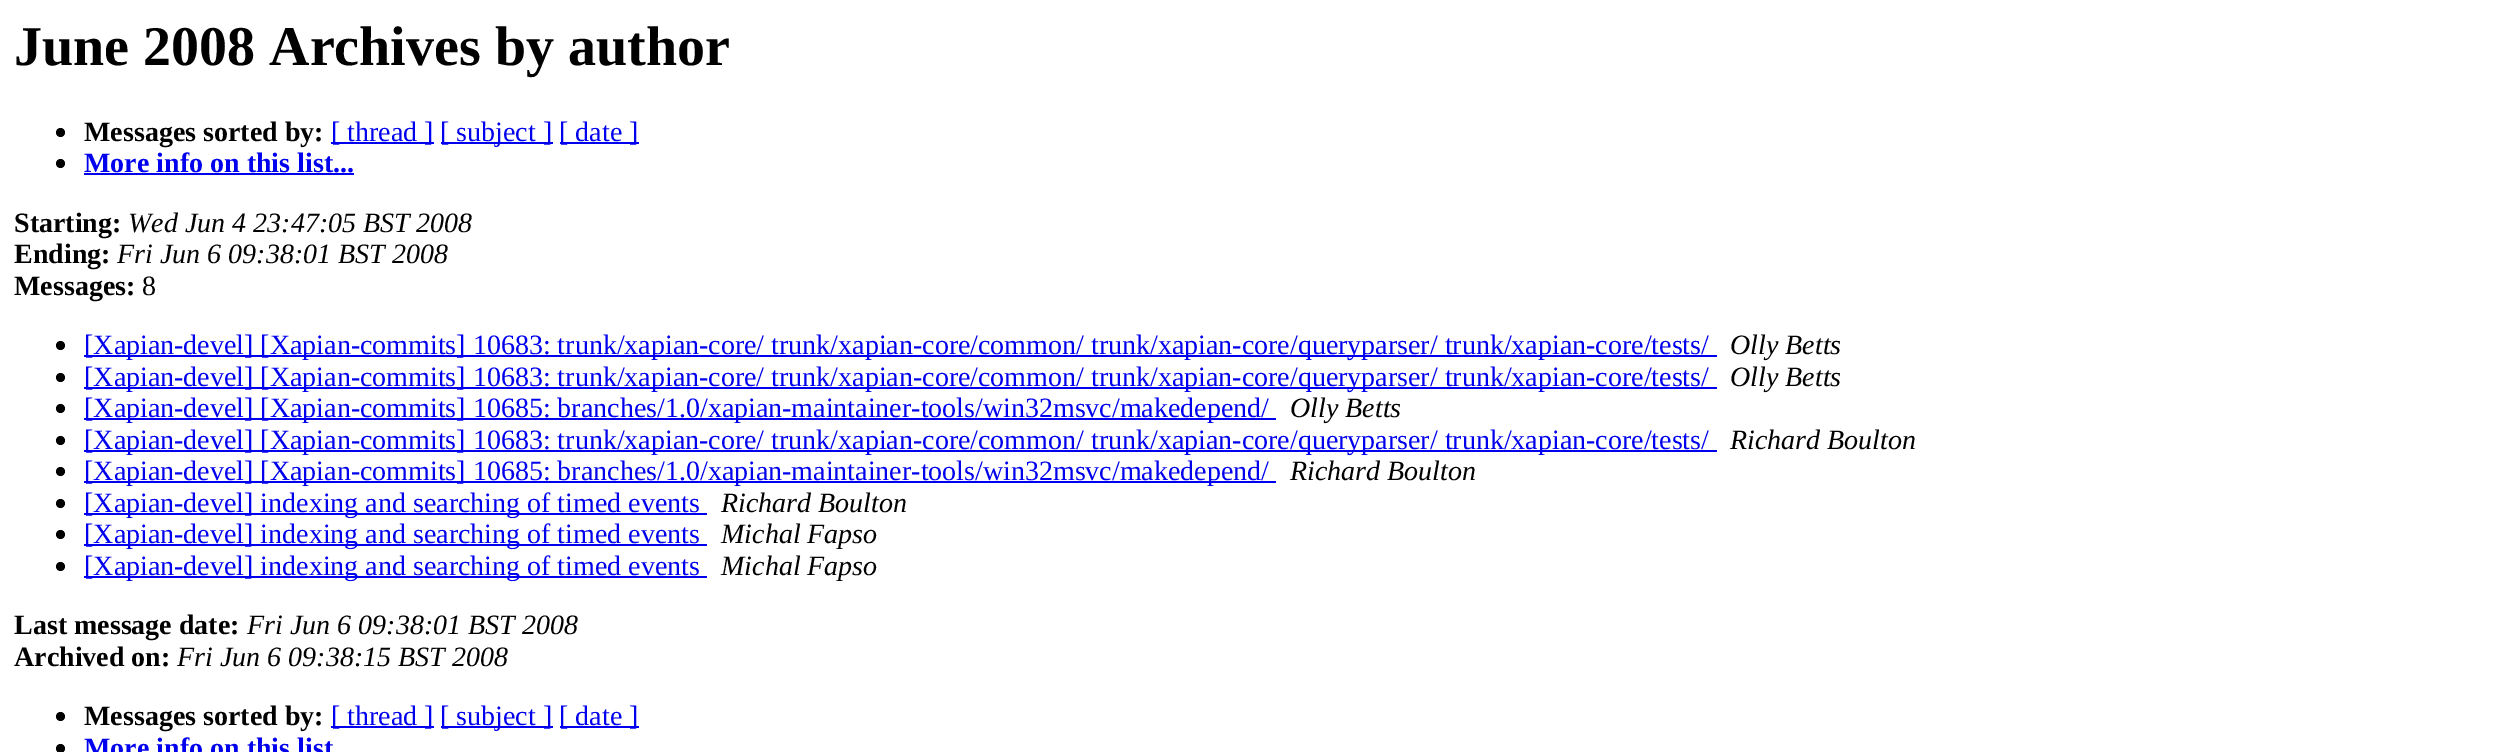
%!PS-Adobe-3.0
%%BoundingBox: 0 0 2508 752
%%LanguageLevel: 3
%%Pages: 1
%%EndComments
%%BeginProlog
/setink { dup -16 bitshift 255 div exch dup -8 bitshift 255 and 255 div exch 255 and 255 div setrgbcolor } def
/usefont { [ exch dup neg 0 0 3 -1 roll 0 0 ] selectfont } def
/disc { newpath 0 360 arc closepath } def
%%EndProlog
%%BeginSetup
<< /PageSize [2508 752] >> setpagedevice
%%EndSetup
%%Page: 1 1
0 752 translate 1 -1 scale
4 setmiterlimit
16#FFFFFF setink
0 0 2508 752 rectfill
/LiberationSerif-Bold 56 usefont
16#000000 setink
14 65 moveto (June 2008 Archives by author) show
60.5 132.5 4.5 disc fill
/LiberationSerif-Bold 28 usefont
84 141 moveto (Messages sorted by:) show
16#0000EE setink
331 142 103 2 rectfill
/LiberationSerif-Regular 28 usefont
331 141 moveto ([ thread ]) show
441 142 112 2 rectfill
440 141 moveto ([ subject ]) show
560 142 79 2 rectfill
559 141 moveto ([ date ]) show
16#000000 setink
60.5 163.5 4.5 disc fill
/LiberationSerif-Bold 28 usefont
16#0000EE setink
84 172 moveto (More info on this list...) show
84 173 270 2 rectfill
16#000000 setink
14 232 moveto (Starting:) show
/LiberationSerif-Italic 28 usefont
128 232 moveto (Wed Jun 4 23:47:05 BST 2008) show
/LiberationSerif-Bold 28 usefont
14 263 moveto (Ending:) show
/LiberationSerif-Italic 28 usefont
117 263 moveto (Fri Jun 6 09:38:01 BST 2008) show
/LiberationSerif-Bold 28 usefont
14 295 moveto (Messages:) show
/LiberationSerif-Regular 28 usefont
142 295 moveto (8) show
60.5 345.5 4.5 disc fill
16#0000EE setink
84 355 1633 2 rectfill
84 354 moveto ([Xapian-devel] [Xapian-commits] 10683: trunk/xapian-core/ trunk/xapian-core/common/ trunk/xapian-core/queryparser/ trunk/xapian-core/tests/) show
/LiberationSerif-Italic 28 usefont
16#000000 setink
1730 354 moveto (Olly Betts) show
60.5 377.5 4.5 disc fill
16#0000EE setink
84 387 1633 2 rectfill
/LiberationSerif-Regular 28 usefont
84 386 moveto ([Xapian-devel] [Xapian-commits] 10683: trunk/xapian-core/ trunk/xapian-core/common/ trunk/xapian-core/queryparser/ trunk/xapian-core/tests/) show
/LiberationSerif-Italic 28 usefont
16#000000 setink
1730 386 moveto (Olly Betts) show
60.5 408.5 4.5 disc fill
16#0000EE setink
84 418 1192 2 rectfill
/LiberationSerif-Regular 28 usefont
84 417 moveto ([Xapian-devel] [Xapian-commits] 10685: branches/1.0/xapian-maintainer-tools/win32msvc/makedepend/) show
/LiberationSerif-Italic 28 usefont
16#000000 setink
1290 417 moveto (Olly Betts) show
60.5 440.5 4.5 disc fill
16#0000EE setink
84 450 1633 2 rectfill
/LiberationSerif-Regular 28 usefont
84 449 moveto ([Xapian-devel] [Xapian-commits] 10683: trunk/xapian-core/ trunk/xapian-core/common/ trunk/xapian-core/queryparser/ trunk/xapian-core/tests/) show
/LiberationSerif-Italic 28 usefont
16#000000 setink
1730 449 moveto (Richard Boulton) show
60.5 471.5 4.5 disc fill
16#0000EE setink
84 481 1192 2 rectfill
/LiberationSerif-Regular 28 usefont
84 480 moveto ([Xapian-devel] [Xapian-commits] 10685: branches/1.0/xapian-maintainer-tools/win32msvc/makedepend/) show
/LiberationSerif-Italic 28 usefont
16#000000 setink
1290 480 moveto (Richard Boulton) show
60.5 503.5 4.5 disc fill
16#0000EE setink
84 513 623 2 rectfill
/LiberationSerif-Regular 28 usefont
84 512 moveto ([Xapian-devel] indexing and searching of timed events) show
/LiberationSerif-Italic 28 usefont
16#000000 setink
721 512 moveto (Richard Boulton) show
60.5 534.5 4.5 disc fill
16#0000EE setink
84 544 623 2 rectfill
/LiberationSerif-Regular 28 usefont
84 543 moveto ([Xapian-devel] indexing and searching of timed events) show
/LiberationSerif-Italic 28 usefont
16#000000 setink
721 543 moveto (Michal Fapso) show
60.5 566.5 4.5 disc fill
16#0000EE setink
84 576 623 2 rectfill
/LiberationSerif-Regular 28 usefont
84 575 moveto ([Xapian-devel] indexing and searching of timed events) show
/LiberationSerif-Italic 28 usefont
16#000000 setink
721 575 moveto (Michal Fapso) show
/LiberationSerif-Bold 28 usefont
14 634 moveto (Last message date:) show
/LiberationSerif-Italic 28 usefont
247 634 moveto (Fri Jun 6 09:38:01 BST 2008) show
/LiberationSerif-Bold 28 usefont
14 666 moveto (Archived on:) show
/LiberationSerif-Italic 28 usefont
177 666 moveto (Fri Jun 6 09:38:15 BST 2008) show
60.5 716.5 4.5 disc fill
/LiberationSerif-Bold 28 usefont
84 725 moveto (Messages sorted by:) show
16#0000EE setink
331 726 103 2 rectfill
/LiberationSerif-Regular 28 usefont
331 725 moveto ([ thread ]) show
441 726 112 2 rectfill
440 725 moveto ([ subject ]) show
560 726 79 2 rectfill
559 725 moveto ([ date ]) show
16#000000 setink
60.5 748.5 4.5 disc fill
/LiberationSerif-Bold 28 usefont
16#0000EE setink
84 757 moveto (More info on this list) show
showpage
%%EOF
